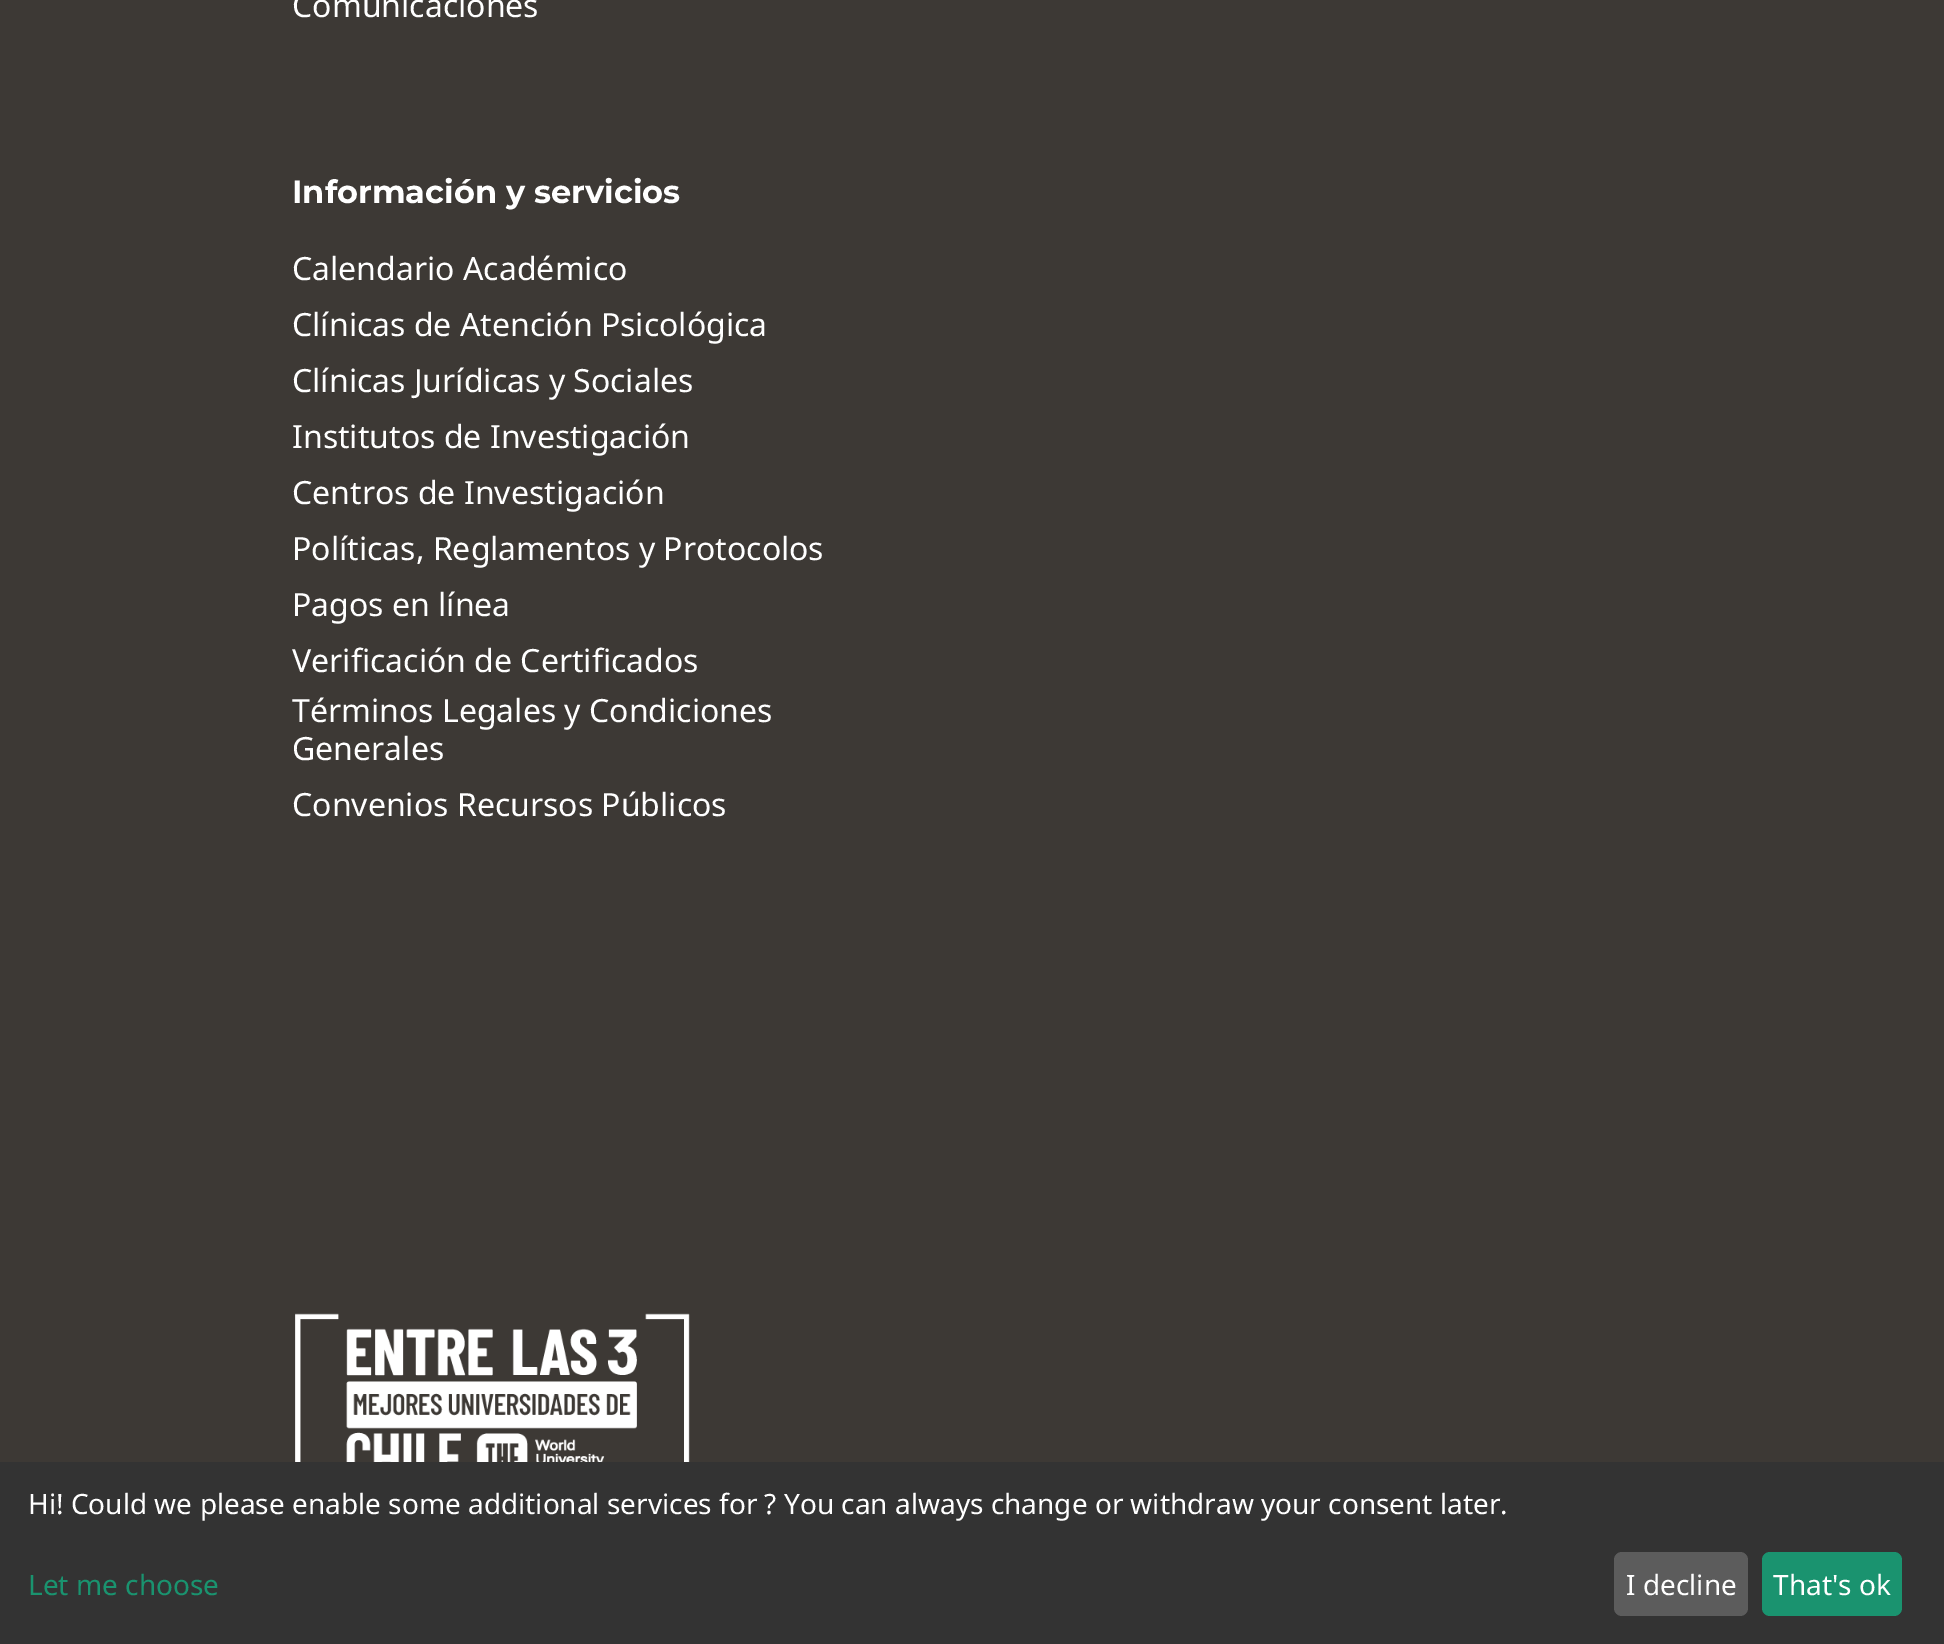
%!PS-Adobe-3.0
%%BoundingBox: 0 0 1944 1644
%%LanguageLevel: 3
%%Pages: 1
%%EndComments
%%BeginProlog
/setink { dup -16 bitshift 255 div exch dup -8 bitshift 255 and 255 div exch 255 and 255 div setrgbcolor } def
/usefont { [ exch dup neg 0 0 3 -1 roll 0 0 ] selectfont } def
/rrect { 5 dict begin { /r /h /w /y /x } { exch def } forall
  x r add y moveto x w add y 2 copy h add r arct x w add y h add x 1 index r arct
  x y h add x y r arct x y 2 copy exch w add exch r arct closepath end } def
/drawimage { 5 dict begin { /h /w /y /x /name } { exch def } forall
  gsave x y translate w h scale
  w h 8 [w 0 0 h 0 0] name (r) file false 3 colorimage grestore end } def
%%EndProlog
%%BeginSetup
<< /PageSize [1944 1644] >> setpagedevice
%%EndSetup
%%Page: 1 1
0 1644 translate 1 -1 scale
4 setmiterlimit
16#3D3935 setink
0 0 1944 1644 rectfill
/NotoSans-Regular 32 usefont
16#FFFFFF setink
292 17 moveto (Comunicaciones) show
/Montserrat-Bold 32 usefont
292 203 moveto (Información y servicios) show
/NotoSans-Regular 32 usefont
[
    [(Calendario Académico) 292 280]
    [(Clínicas de Atención Psicológica) 292 336]
    [(Clínicas Jurídicas y Sociales) 292 392]
    [(Institutos de Investigación) 292 448]
    [(Centros de Investigación) 292 504]
    [(Políticas, Reglamentos y Protocolos) 292 560]
    [(Pagos en línea) 292 616]
    [(Verificación de Certificados) 292 672]
    [(Términos Legales y Condiciones) 292 722]
    [(Generales) 292 760]
    [(Convenios Recursos Públicos) 292 816]
] { aload pop moveto show } forall
(img1.raw) 295 1313 395 149 drawimage
16#333333 setink
0 1462 1944 182 rectfill
/NotoSans-Regular 28 usefont
16#FFFFFF setink
28 1514 moveto (Hi! Could we please enable some additional services for ? You can always change or withdraw your consent later.) show
16#1A936F setink
28 1595 moveto (Let me choose) show
16#5C5C5C setink
1614 1552 134 64 8 rrect fill
16#FFFFFF setink
1626 1595 moveto (I decline) show
16#1A936F setink
1762 1552 140 64 8 rrect fill
16#FFFFFF setink
1773 1595 moveto (That's ok) show
showpage
%%EOF
